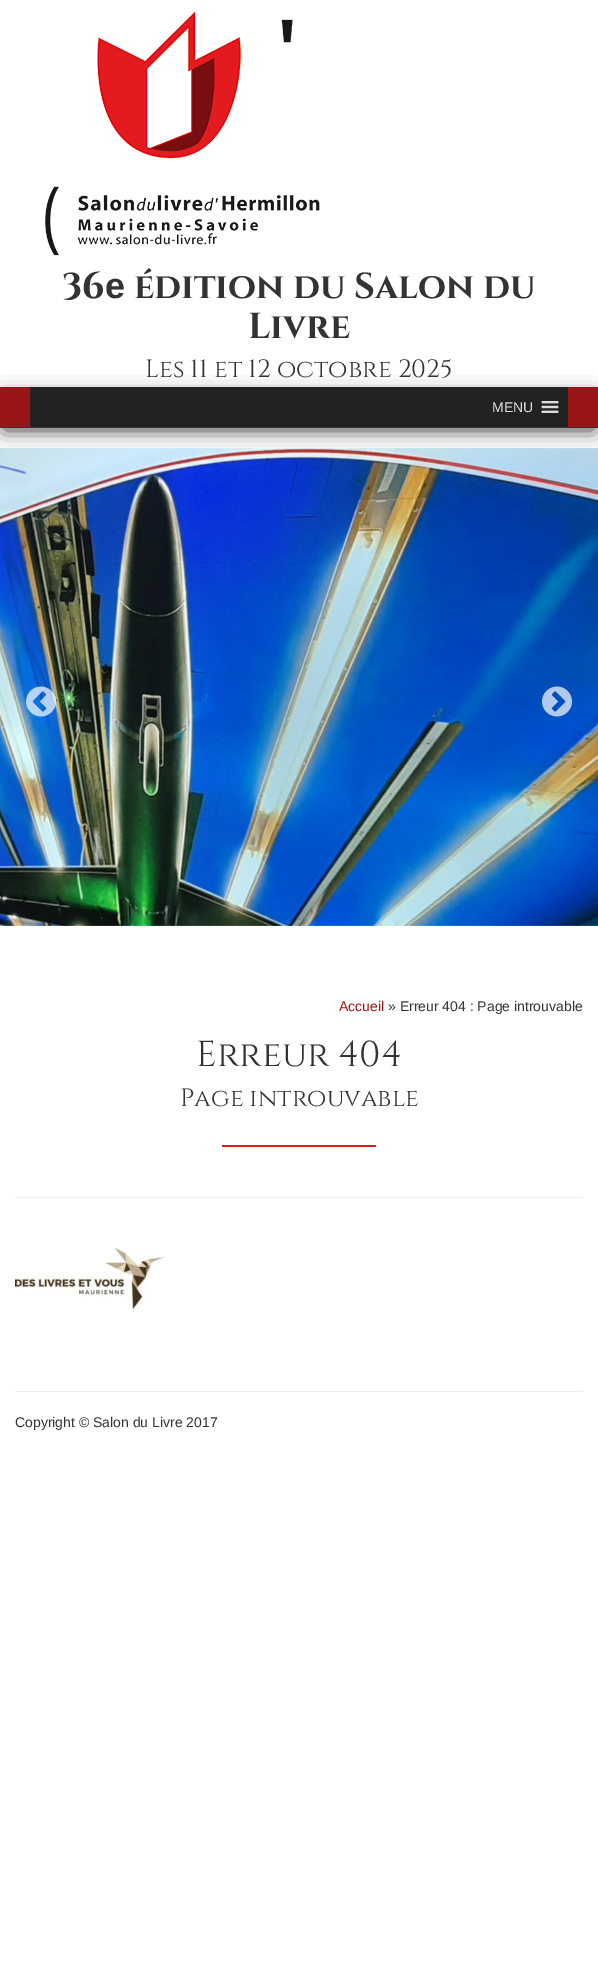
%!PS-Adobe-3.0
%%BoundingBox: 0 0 598 1961
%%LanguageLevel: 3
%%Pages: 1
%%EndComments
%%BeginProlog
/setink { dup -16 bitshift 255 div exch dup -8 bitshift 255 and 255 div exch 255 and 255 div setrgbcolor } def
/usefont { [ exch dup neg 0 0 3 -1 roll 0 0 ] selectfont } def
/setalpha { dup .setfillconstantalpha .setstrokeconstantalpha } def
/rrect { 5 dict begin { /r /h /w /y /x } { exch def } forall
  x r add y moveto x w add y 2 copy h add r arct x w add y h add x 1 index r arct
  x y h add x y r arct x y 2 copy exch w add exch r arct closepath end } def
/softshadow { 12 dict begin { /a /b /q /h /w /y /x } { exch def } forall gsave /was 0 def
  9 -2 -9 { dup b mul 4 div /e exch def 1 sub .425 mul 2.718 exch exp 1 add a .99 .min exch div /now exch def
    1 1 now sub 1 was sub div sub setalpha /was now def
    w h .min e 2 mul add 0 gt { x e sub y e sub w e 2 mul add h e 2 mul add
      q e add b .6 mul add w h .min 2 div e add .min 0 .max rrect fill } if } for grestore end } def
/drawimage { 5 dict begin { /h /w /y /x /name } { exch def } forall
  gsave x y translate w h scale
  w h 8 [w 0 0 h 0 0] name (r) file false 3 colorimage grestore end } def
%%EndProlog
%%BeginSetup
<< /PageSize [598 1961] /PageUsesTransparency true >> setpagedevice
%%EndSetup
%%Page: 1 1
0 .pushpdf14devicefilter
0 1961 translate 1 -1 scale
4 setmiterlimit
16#FFFFFF setink
0 0 598 1961 rectfill
(img1.raw) 45 11 275 245 drawimage
/Cinzel-Bold 36 usefont
16#333333 setink
62 298 moveto (36) show
/LiberationSans-Bold 36 usefont
105 298 moveto (e) show
/Cinzel-Bold 36 usefont
134 298 moveto (édition du Salon du) show
248 338 moveto (Livre) show
/Cinzel-Regular 25 usefont
145 377 moveto (Les 11 et 12 octobre 2025) show
4 397 590 33 0 10 1 softshadow
16#981618 setink
0 387 598 40 rectfill
16#333333 setink
0 427 598 1 rectfill
16#222222 setink
30 387 538 40 2 rrect fill
/LiberationSans-Regular 14 usefont
16#DDDDDD setink
492 412 moveto (MENU) show
(img2.raw) 541 401 18 12 drawimage
(img3.raw) 0 448 598 478 drawimage
(img4.raw) 26 686 30 31 drawimage
(img5.raw) 542 686 30 31 drawimage
16#981618 setink
339 1011 moveto (Accueil) show
16#333333 setink
388 1011 moveto (» Erreur 404 : Page introuvable) show
/Cinzel-Regular 36 usefont
196 1066 moveto (Erreur 404) show
/Cinzel-Regular 25 usefont
180 1106 moveto (Page introuvable) show
16#E31B1E setink
222 1145 154 2 rectfill
16#EEEEEE setink
15 1197 568 1 rectfill
(img6.raw) 15 1248 150 61 drawimage
15 1391 568 1 rectfill
/LiberationSans-Regular 14 usefont
16#333333 setink
15 1427 moveto (Copyright © Salon du Livre 2017) show
.poppdf14devicefilter showpage
%%EOF
